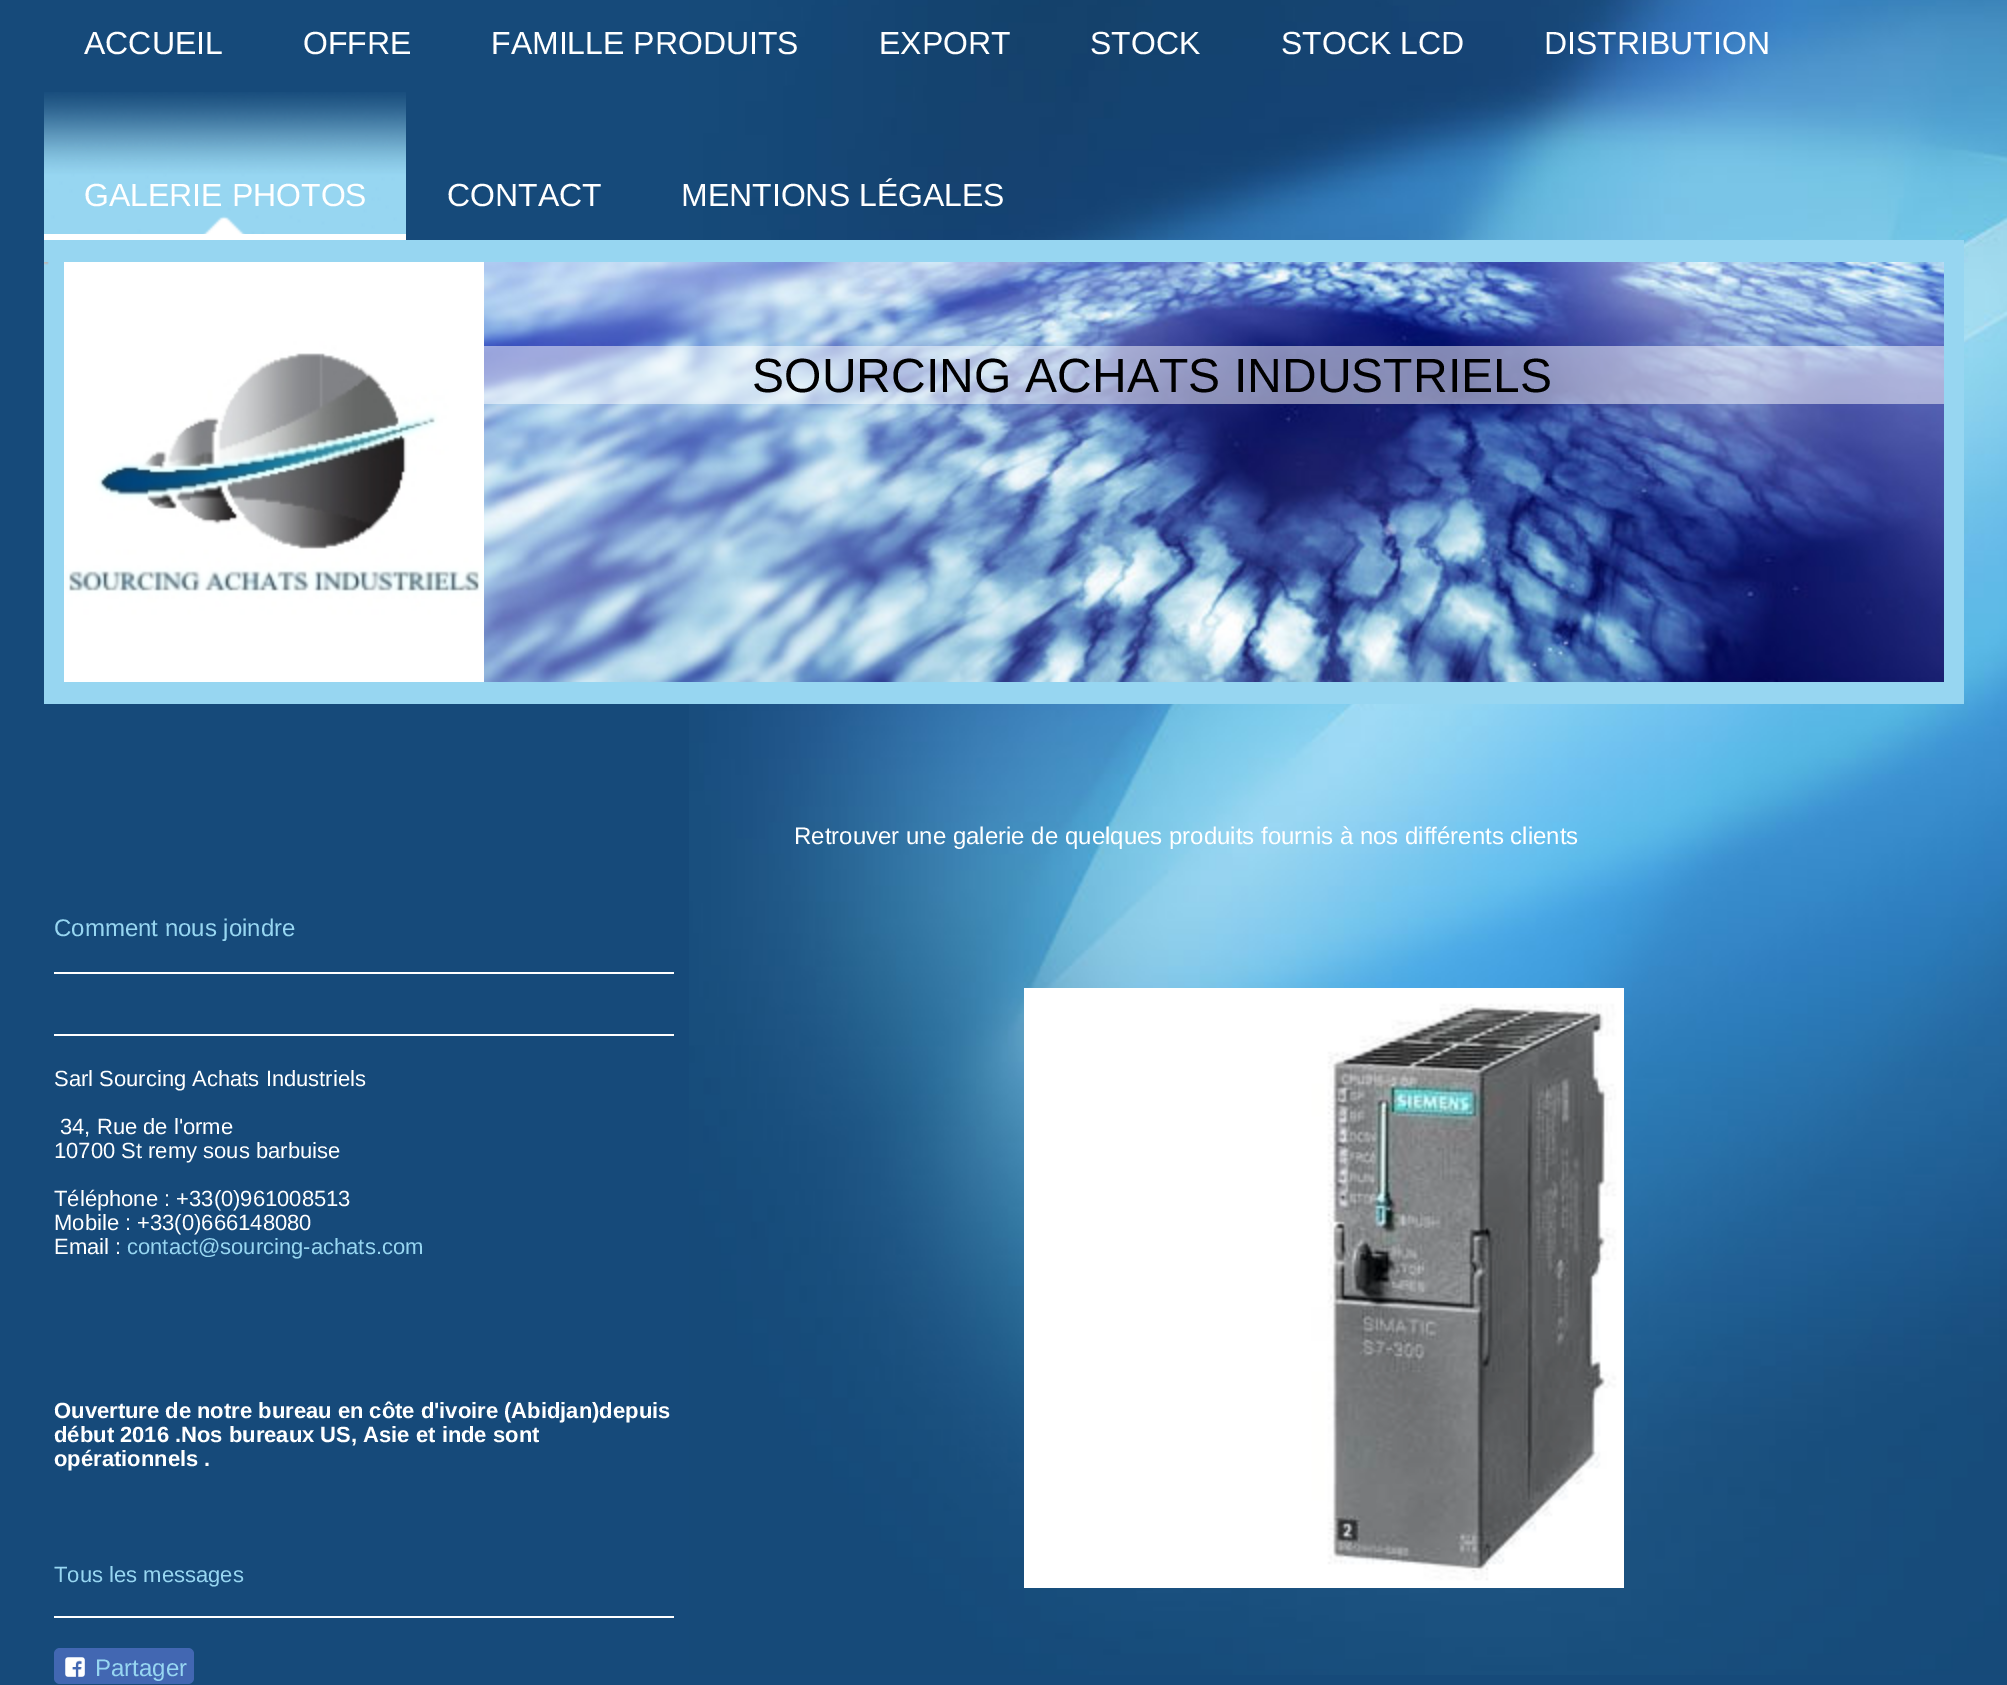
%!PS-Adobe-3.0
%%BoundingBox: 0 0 2007 1685
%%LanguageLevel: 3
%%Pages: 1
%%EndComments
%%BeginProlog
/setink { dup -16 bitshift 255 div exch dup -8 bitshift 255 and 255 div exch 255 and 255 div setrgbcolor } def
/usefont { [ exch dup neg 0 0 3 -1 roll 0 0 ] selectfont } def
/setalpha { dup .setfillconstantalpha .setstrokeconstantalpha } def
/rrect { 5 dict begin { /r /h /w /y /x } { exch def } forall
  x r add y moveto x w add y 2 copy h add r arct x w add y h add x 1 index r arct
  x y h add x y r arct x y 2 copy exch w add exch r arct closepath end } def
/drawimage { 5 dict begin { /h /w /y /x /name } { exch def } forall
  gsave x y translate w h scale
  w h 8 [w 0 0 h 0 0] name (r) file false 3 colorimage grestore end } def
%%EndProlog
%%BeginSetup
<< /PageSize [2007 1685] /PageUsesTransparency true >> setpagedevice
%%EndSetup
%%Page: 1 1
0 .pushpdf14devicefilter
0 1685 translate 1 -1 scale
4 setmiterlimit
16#164A7A setink
0 0 2007 1685 rectfill
(img1.raw) 689 0 1318 1675 drawimage
/LiberationSans-Regular 32 usefont
16#FFFFFF setink
[
    [(ACCUEIL) 84 54]
    [(OFFRE) 303 54]
    [(FAMILLE PRODUITS) 491 54]
    [(EXPORT) 879 54]
    [(STOCK) 1090 54]
    [(STOCK LCD) 1281 54]
    [(DISTRIBUTION) 1544 54]
] { aload pop moveto show } forall
(img2.raw) 44 92 362 142 drawimage
44 234 362 6 rectfill
[
    [(GALERIE PHOTOS) 84 206]
    [(CONTACT) 447 206]
    [(MENTIONS LÉGALES) 681 206]
] { aload pop moveto show } forall
16#97D6F1 setink
44 240 1920 464 rectfill
(img3.raw) 44 262 5 3 drawimage
(img4.raw) 64 262 420 420 drawimage
(img5.raw) 484 262 1460 420 drawimage
0.5 setalpha
16#FFFFFF setink
484 346 1460 58 rectfill
/LiberationSans-Regular 48 usefont
1 setalpha
16#000000 setink
752 392 moveto 0.1 0 (SOURCING ACHATS INDUSTRIELS) ashow
/LiberationSans-Regular 24 usefont
16#FFFFFF setink
794 844 moveto (Retrouver une galerie de quelques produits fournis à nos différents clients) show
(img6.raw) 1024 988 600 600 drawimage
16#97D6F1 setink
54 936 moveto (Comment nous joindre) show
16#FFFFFF setink
54 972 620 2 rectfill
54 1034 620 2 rectfill
/LiberationSans-Regular 22 usefont
[
    [(Sarl Sourcing Achats Industriels) 54 1086]
    [(34, Rue de l'orme) 60 1134]
    [(10700 St remy sous barbuise) 54 1158]
    [(Téléphone : +33\(0\)961008513) 54 1206]
    [(Mobile : +33\(0\)666148080) 54 1230]
    [(Email :) 54 1254]
] { aload pop moveto show } forall
16#97D6F1 setink
127 1254 moveto (contact@sourcing-achats.com) show
/LiberationSans-Bold 22 usefont
16#FFFFFF setink
[
    [(Ouverture de notre bureau en côte d'ivoire \(Abidjan\)depuis) 54 1418]
    [(début 2016 .Nos bureaux US, Asie et inde sont) 54 1442]
    [(opérationnels .) 54 1466]
] { aload pop moveto show } forall
/LiberationSans-Regular 22 usefont
16#97D6F1 setink
54 1582 moveto (Tous les messages) show
16#FFFFFF setink
54 1616 620 2 rectfill
16#4267B2 setink
54 1648 140 36 6 rrect fill
(img7.raw) 65 1657 20 20 drawimage
/LiberationSans-Regular 24 usefont
16#97D6F1 setink
95 1676 moveto (Partager) show
.poppdf14devicefilter showpage
%%EOF
